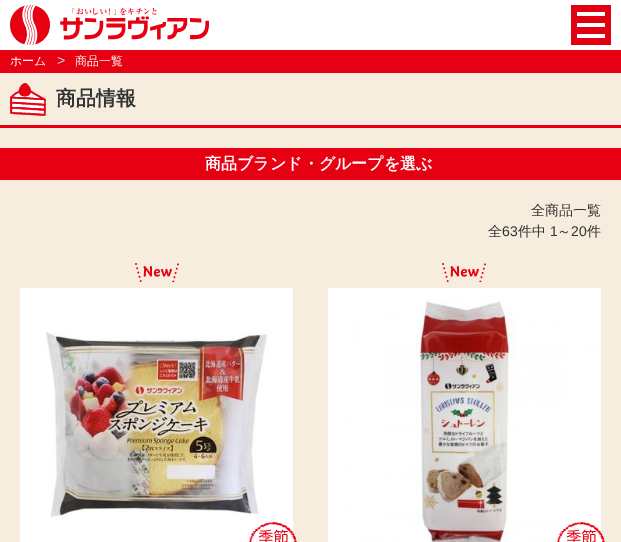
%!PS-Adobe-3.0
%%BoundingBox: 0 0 621 542
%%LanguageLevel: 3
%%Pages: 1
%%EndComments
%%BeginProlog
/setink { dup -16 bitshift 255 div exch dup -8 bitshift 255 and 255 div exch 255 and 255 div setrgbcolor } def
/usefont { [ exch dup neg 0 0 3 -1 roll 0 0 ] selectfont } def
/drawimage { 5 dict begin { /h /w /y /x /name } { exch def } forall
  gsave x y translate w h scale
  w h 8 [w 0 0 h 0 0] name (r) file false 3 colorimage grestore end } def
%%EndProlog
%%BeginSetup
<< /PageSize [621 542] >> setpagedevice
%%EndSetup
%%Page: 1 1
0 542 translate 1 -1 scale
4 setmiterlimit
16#F7EDDF setink
0 0 621 542 rectfill
[
    [0 0 621 50 16#FFFFFF]
    [571 5 40 40 16#E10012]
    [577 12 28 4 16#FFFFFF]
    [577 23 28 4 16#FFFFFF]
    [577 34 28 4 16#FFFFFF]
] { aload pop setink rectfill } forall
(img1.raw) 10 5 199 40 drawimage
16#E60012 setink
0 50 621 23 rectfill
/WenQuanYiZenHei-Medium 12 usefont
16#FFFFFF setink
10 65 moveto (ホーム) show
/LiberationSans-Regular 14 usefont
16#DDDDDD setink
57 65 moveto (>) show
/WenQuanYiZenHei-Medium 12 usefont
16#FFFFFF setink
75 65 moveto (商品一覧) show
16#E60012 setink
0 125 621 3 rectfill
(img2.raw) 10 83 36 33 drawimage
/WenQuanYiZenHei-Bold 20 usefont
16#333333 setink
56 105 moveto (商品情報) show
16#E60012 setink
0 148 621 32 rectfill
/WenQuanYiZenHei-Bold 16 usefont
16#FFFFFF setink
205 169 moveto (商品ブランド・グループを選ぶ) show
/WenQuanYiZenHei-Medium 14 usefont
16#333333 setink
531 215 moveto (全商品一覧) show
488 236 moveto (全) show
/LiberationSans-Regular 14 usefont
502 236 moveto (63) show
/WenQuanYiZenHei-Medium 14 usefont
518 236 moveto (件中) show
/LiberationSans-Regular 14 usefont
550 236 moveto (1) show
/WenQuanYiZenHei-Medium 14 usefont
557 236 moveto (～) show
/LiberationSans-Regular 14 usefont
571 236 moveto (20) show
/WenQuanYiZenHei-Medium 14 usefont
587 236 moveto (件) show
(img3.raw) 135 263 44 19 drawimage
(img4.raw) 20 288 273 254 drawimage
(img5.raw) 249 522 48 20 drawimage
(img3.raw) 442 263 44 19 drawimage
(img6.raw) 328 288 273 254 drawimage
(img7.raw) 557 522 48 20 drawimage
showpage
%%EOF
